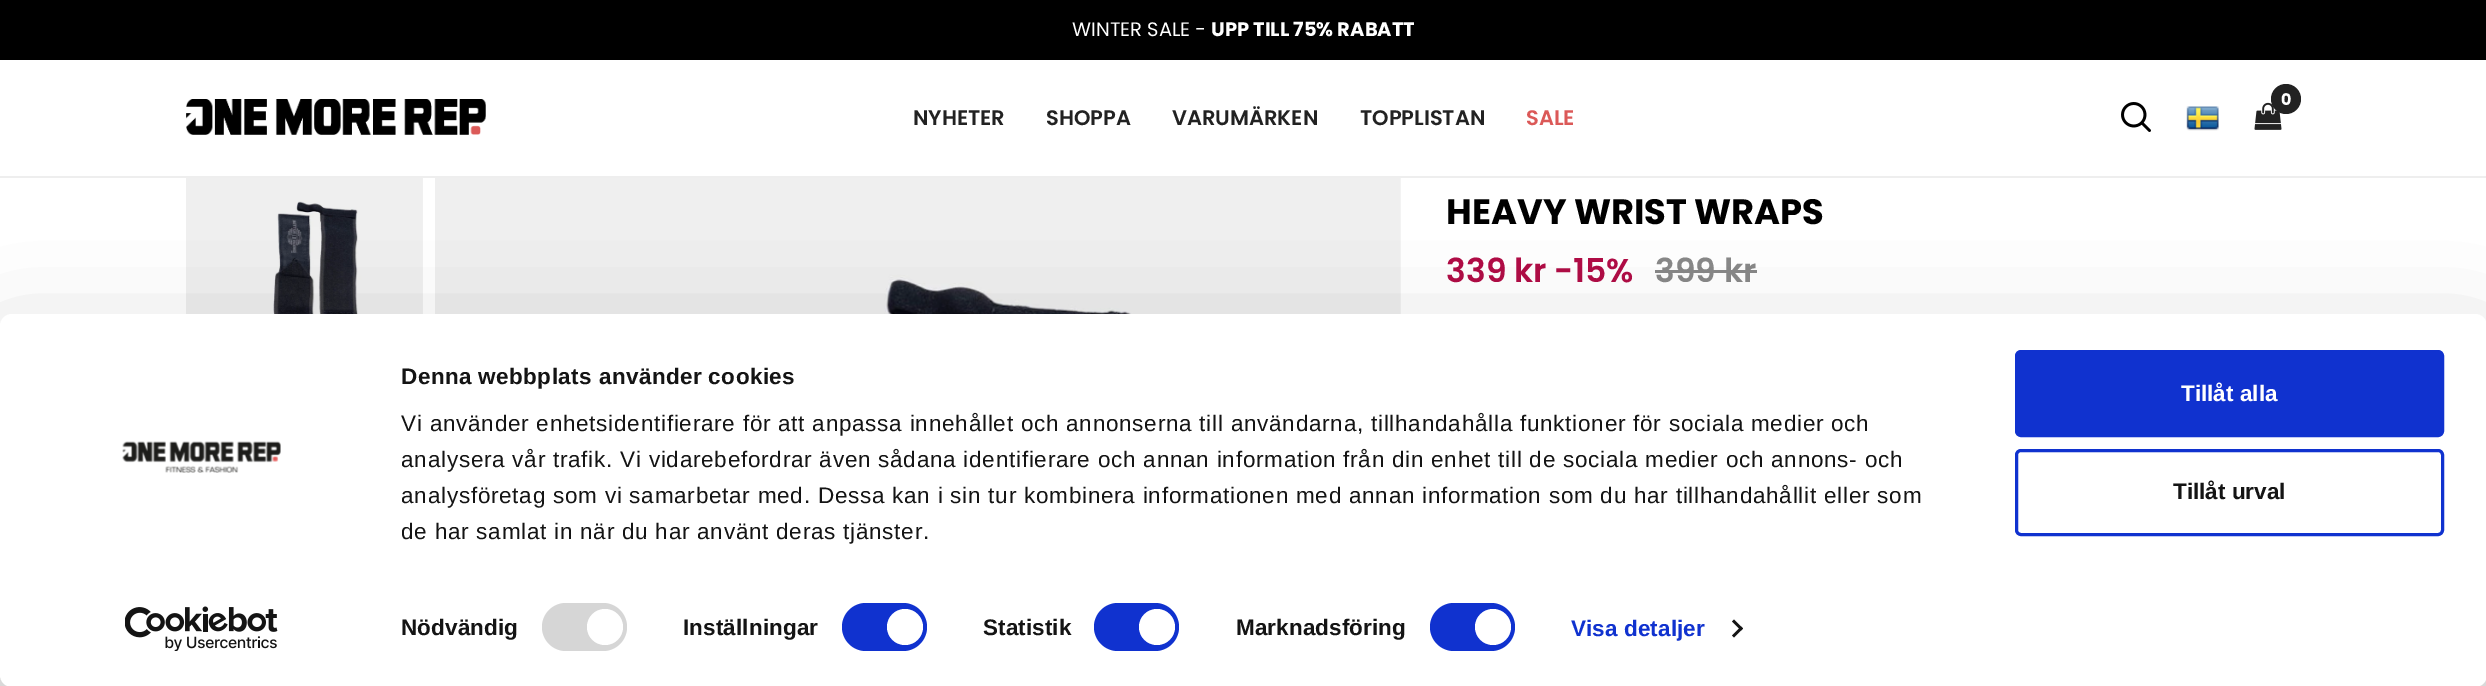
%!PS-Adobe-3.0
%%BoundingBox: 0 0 2486 686
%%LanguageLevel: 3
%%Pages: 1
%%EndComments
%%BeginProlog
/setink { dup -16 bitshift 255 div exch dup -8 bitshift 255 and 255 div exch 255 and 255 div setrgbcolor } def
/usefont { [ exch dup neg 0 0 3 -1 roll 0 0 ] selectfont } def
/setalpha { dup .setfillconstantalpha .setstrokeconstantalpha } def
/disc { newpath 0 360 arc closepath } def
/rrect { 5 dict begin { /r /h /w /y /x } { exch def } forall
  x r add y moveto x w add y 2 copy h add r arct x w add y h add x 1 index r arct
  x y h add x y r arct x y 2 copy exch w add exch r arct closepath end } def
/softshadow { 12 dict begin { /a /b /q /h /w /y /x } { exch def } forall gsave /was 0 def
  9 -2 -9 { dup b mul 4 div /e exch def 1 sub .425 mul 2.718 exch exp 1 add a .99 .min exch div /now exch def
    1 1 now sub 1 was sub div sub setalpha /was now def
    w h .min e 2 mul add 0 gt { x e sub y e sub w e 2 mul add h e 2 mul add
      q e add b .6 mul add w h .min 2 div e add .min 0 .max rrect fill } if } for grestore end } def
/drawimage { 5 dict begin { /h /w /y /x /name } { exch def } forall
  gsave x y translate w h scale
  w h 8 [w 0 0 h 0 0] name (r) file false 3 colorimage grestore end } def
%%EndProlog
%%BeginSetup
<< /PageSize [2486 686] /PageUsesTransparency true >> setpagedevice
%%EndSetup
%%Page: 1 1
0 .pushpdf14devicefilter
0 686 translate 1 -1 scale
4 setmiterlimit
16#FFFFFF setink
0 0 2486 686 rectfill
16#000000 setink
0 0 2486 60 rectfill
/Poppins-Regular 19.5 usefont
16#FFFFFF setink
1072 36 moveto (WINTER SALE -) show
/Poppins-Bold 19.5 usefont
1211 36 moveto (UPP TILL 75% RABATT) show
16#EEEEEE setink
0 176 2486 2 rectfill
(img1.raw) 186 99 300 36 drawimage
/Poppins-SemiBold 21 usefont
16#222222 setink
[
    [(NYHETER) 913 125]
    [(SHOPPA) 1046 125]
    [(VARUMÄRKEN) 1172 125]
    [(TOPPLISTAN) 1360 125]
] { aload pop moveto show } forall
16#DB5958 setink
1526 125 moveto (SALE) show
(img2.raw) 2254 102 28 28 drawimage
16#222222 setink
2286 99 15 disc fill
/Poppins-Bold 16 usefont
16#FFFFFF setink
2281 105 moveto (0) show
(img3.raw) 2121 102 30 30 drawimage
(img4.raw) 2186 106 33 25 drawimage
(img5.raw) 186 178 237 136 drawimage
(img6.raw) 435 178 966 136 drawimage
/Poppins-Bold 35.25 usefont
16#000000 setink
1446 224 moveto (HEAVY WRIST WRAPS) show
/Poppins-SemiBold 33 usefont
16#B00C46 setink
1446 282 moveto (339 kr −15%) show
16#888888 setink
1655 282 moveto (399 kr) show
1655 270 102 3 rectfill
16#000000 setink
0 359 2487 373 12 52.5 0.3 softshadow
16#FFFFFF setink
0 314 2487 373 12 rrect fill
(img7.raw) 122 441 159 32 drawimage
(img8.raw) 125 606 153 45 drawimage
/LiberationSans-Bold 22.5 usefont
16#141414 setink
401 384 moveto 0.4 0 (Denna webbplats använder cookies) ashow
/LiberationSans-Regular 22.5 usefont
401 431 moveto 0.75 0 (Vi använder enhetsidentifierare för att anpassa innehållet och annonserna till användarna, tillhandahålla funktioner för sociala medier och) ashow
401 467 moveto 0.75 0 (analysera vår trafik. Vi vidarebefordrar även sådana identifierare och annan information från din enhet till de sociala medier och annons- och) ashow
401 503 moveto 0.75 0 (analysföretag som vi samarbetar med. Dessa kan i sin tur kombinera informationen med annan information som du har tillhandahållit eller som) ashow
401 539 moveto 0.75 0 (de har samlat in när du har använt deras tjänster.) ashow
/LiberationSans-Bold 22.5 usefont
401 635 moveto 0.1 0 (Nödvändig) ashow
16#D6D6D6 setink
542 603 85 48 24 rrect fill
16#FFFFFF setink
605 627 18 disc fill
16#141414 setink
683 635 moveto 0.1 0 (Inställningar) ashow
16#1032CF setink
842 603 85 48 24 rrect fill
16#FFFFFF setink
905 627 18 disc fill
16#141414 setink
983 635 moveto 0.1 0 (Statistik) ashow
16#1032CF setink
1094 603 85 48 24 rrect fill
16#FFFFFF setink
1157 627 18 disc fill
16#141414 setink
1236 635 moveto 0.1 0 (Marknadsföring) ashow
16#1032CF setink
1430 603 85 48 24 rrect fill
16#FFFFFF setink
1493 627 18 disc fill
16#1032CF setink
1571 636 moveto 0.1 0 (Visa detaljer) ashow
16#141414 setink
1734 619.5 moveto 1743 628.5 lineto 1741 630.5 lineto 1732 621.5 lineto closepath fill
1741 626.5 moveto 1743 628.5 lineto 1734 637.5 lineto 1732 635.5 lineto closepath fill
16#1032CF setink
2016.5 351.5 426 84 4.5 rrect gsave fill grestore
3 setlinewidth
stroke
16#FFFFFF setink
2181 401 moveto (Tillåt alla) show
16#1032CF setink
2016.5 450.5 426 84 4.5 rrect stroke
16#141414 setink
2173 499 moveto (Tillåt urval) show
.poppdf14devicefilter showpage
%%EOF
